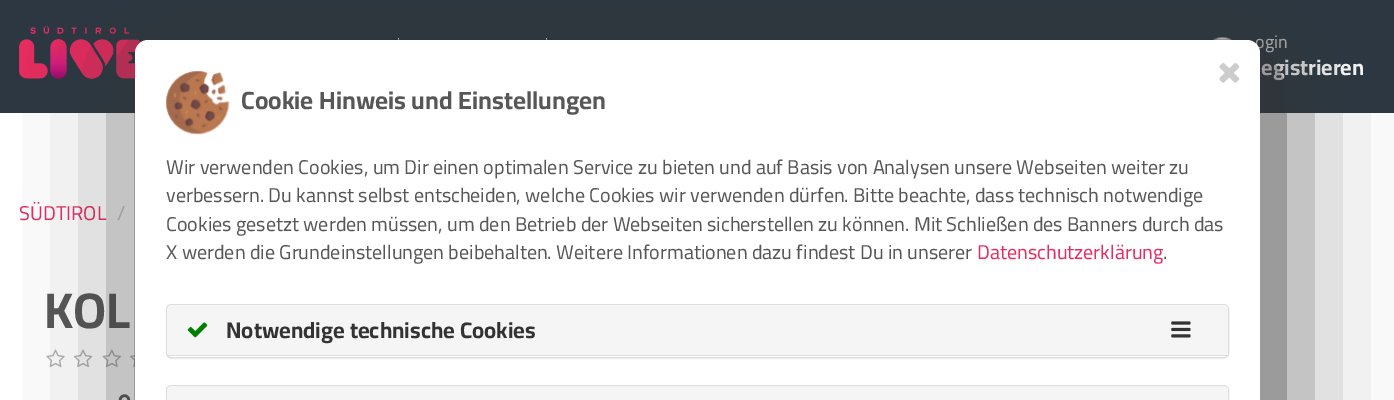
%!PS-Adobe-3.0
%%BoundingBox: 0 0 1394 400
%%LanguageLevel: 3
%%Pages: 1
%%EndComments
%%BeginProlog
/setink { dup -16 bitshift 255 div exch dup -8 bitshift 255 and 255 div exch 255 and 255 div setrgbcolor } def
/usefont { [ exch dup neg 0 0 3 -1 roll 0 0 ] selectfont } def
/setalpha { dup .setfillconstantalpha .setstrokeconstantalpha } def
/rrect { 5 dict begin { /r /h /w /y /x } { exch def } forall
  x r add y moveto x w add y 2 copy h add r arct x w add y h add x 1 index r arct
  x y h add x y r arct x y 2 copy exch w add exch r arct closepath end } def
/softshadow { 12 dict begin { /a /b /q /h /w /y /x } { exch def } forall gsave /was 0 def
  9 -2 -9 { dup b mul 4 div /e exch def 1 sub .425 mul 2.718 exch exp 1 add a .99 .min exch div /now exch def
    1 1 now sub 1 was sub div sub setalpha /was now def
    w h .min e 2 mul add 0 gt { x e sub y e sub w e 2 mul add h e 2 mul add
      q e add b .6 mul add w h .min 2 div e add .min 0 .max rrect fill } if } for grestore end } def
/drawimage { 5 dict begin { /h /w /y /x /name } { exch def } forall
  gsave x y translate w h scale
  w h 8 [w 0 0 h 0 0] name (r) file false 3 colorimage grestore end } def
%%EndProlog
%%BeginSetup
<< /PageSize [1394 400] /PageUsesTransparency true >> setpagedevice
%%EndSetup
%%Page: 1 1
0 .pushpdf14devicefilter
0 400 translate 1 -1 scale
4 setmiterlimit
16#FFFFFF setink
0 0 1394 400 rectfill
16#2C3742 setink
0 0 1394 113 rectfill
(img1.raw) 19 26 122 53 drawimage
16#EBEBEB setink
398 38 1 2 rectfill
546 38 1 2 rectfill
(img2.raw) 1212 37 21 3 drawimage
/Cairo-Regular 18 usefont
16#D3CED0 setink
1255 48 moveto (ogin) show
/Cairo-Bold 22 usefont
16#FFFFFF setink
1261 75 moveto (egistrieren) show
/Cairo-Regular 20 usefont
16#E72C60 setink
19 220 moveto (SÜDTIROL) show
16#CCCCCC setink
117 220 moveto (/) show
/Cairo-Bold 50 usefont
16#575757 setink
44 328 moveto (KOL) show
(img3.raw) 46 349 19 19 drawimage
(img4.raw) 73 349 20 19 drawimage
(img5.raw) 102 349 19 19 drawimage
(img6.raw) 130 355 5 13 drawimage
(img7.raw) 118 394 13 6 drawimage
16#333333 setink
148 53 1125 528 13 56 1 softshadow
16#FFFFFF setink
148 40 moveto 1247 40 lineto 1254 40 1260 46 1260 53 curveto 1260 400 lineto 135 400 lineto 135 53 lineto 135 46 141 40 148 40 curveto closepath fill
(img8.raw) 1219 63 21 20 drawimage
(img9.raw) 166 71 64 64 drawimage
/Cairo-Bold 25 usefont
16#575757 setink
241 109 moveto (Cookie Hinweis und Einstellungen) show
/Cairo-Regular 20 usefont
[
    [(Wir verwenden Cookies, um Dir einen optimalen Service zu bieten und auf Basis von Analysen unsere Webseiten weiter zu) 166 174]
    [(verbessern. Du kannst selbst entscheiden, welche Cookies wir verwenden dürfen. Bitte beachte, dass technisch notwendige) 166 202]
    [(Cookies gesetzt werden müssen, um den Betrieb der Webseiten sicherstellen zu können. Mit Schließen des Banners durch das) 166 231]
    [(X werden die Grundeinstellungen beibehalten. Weitere Informationen dazu findest Du in unserer) 166 259]
] { aload pop moveto show } forall
16#E72C60 setink
977 259 moveto (Datenschutzerklärung) show
16#575757 setink
1163 259 moveto (.) show
16#000000 setink
166 305 1063 54 5 0.5 0.05 softshadow
16#FFFFFF setink
166.5 304.5 1062 53 4.5 rrect gsave fill grestore
16#DDDDDD setink
stroke
16#F5F5F5 setink
172 305 moveto 1224 305 lineto 1226 305 1228 307 1228 309 curveto 1228 356 lineto 168 356 lineto 168 309 lineto 168 307 170 305 172 305 curveto closepath fill
16#DDDDDD setink
168 355 1060 1 rectfill
(img10.raw) 187 322 21 16 drawimage
/Cairo-Bold 22.5 usefont
16#333333 setink
226 338 moveto (Notwendige technische Cookies) show
(img11.raw) 1171 321 20 17 drawimage
16#DDDDDD setink
166.5 385.5 1062 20 4.5 rrect stroke
16#F5F5F5 setink
172 386 moveto 1224 386 lineto 1226 386 1228 388 1228 390 curveto 1228 400 lineto 168 400 lineto 168 390 lineto 168 388 170 386 172 386 curveto closepath fill
.poppdf14devicefilter showpage
%%EOF
